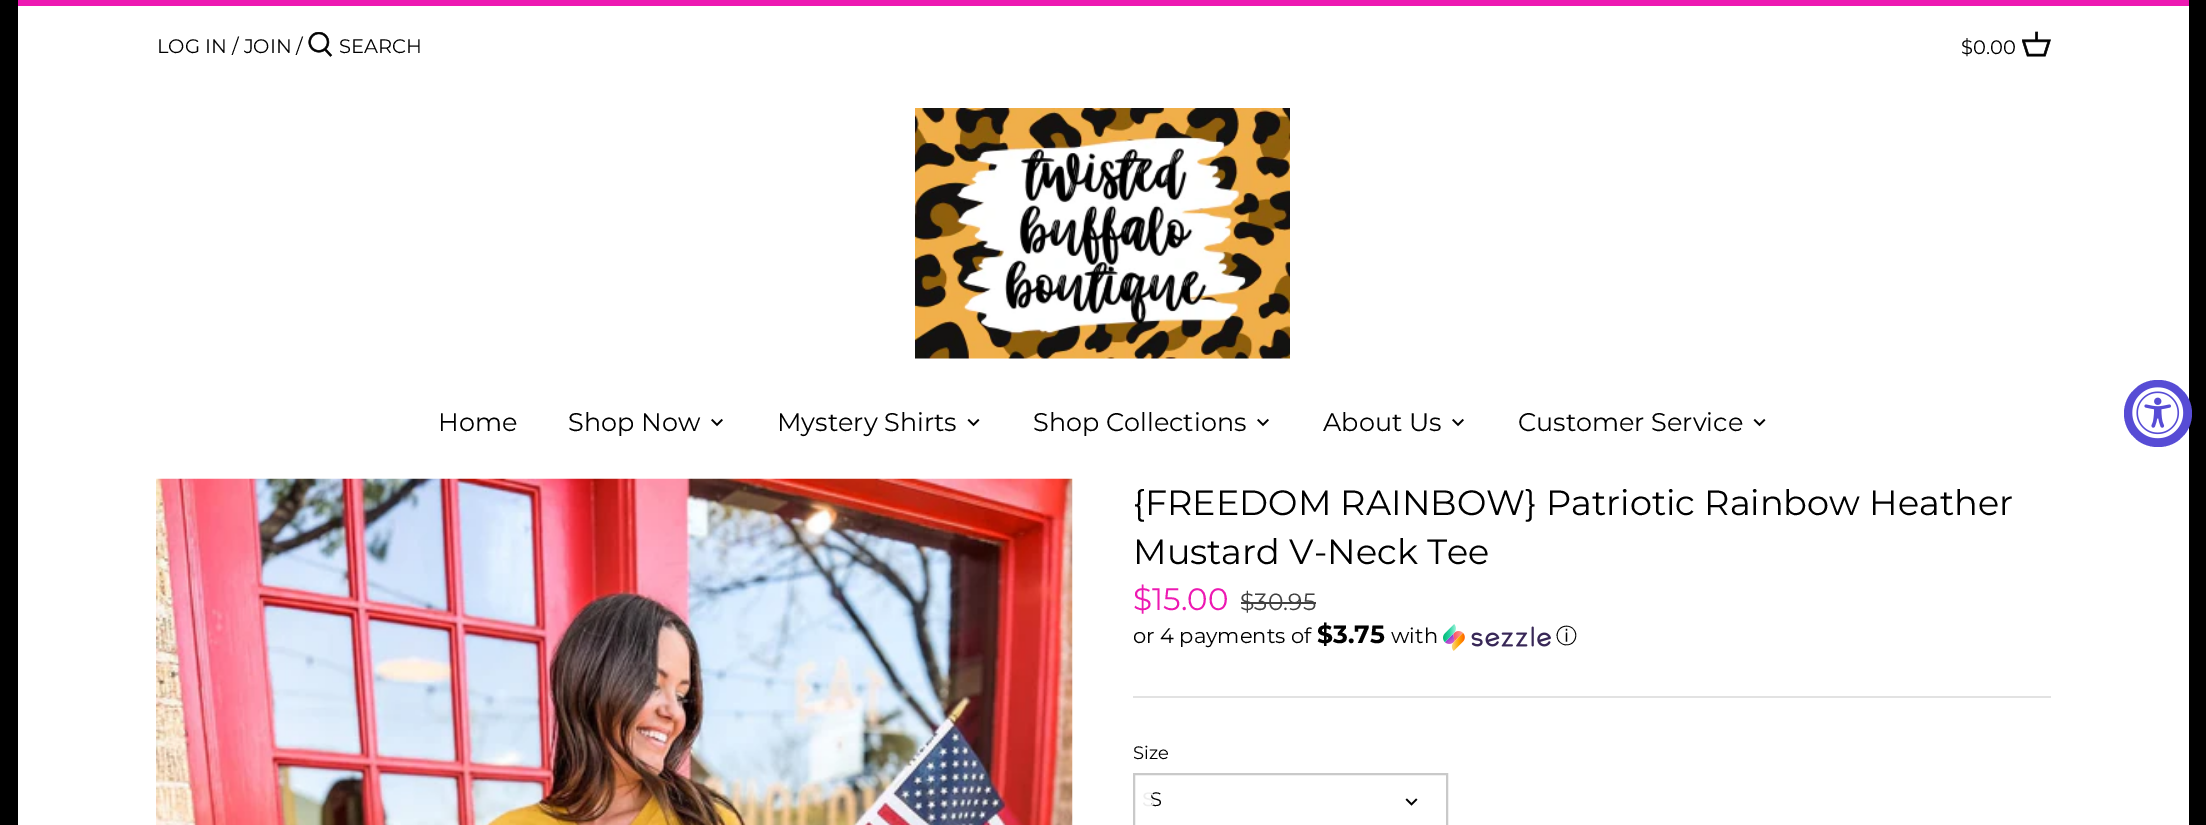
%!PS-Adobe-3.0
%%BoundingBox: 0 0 2206 825
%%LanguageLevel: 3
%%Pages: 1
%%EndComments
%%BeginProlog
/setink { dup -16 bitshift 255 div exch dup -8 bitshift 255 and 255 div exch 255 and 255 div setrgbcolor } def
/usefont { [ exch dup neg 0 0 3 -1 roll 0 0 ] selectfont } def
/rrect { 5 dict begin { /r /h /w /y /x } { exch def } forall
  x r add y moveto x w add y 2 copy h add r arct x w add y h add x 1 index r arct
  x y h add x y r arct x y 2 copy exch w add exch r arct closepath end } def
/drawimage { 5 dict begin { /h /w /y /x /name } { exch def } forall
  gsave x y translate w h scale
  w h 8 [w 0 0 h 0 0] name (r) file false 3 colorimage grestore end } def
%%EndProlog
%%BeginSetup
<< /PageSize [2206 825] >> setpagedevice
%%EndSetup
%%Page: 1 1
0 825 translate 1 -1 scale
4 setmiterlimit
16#000000 setink
0 0 2206 825 rectfill
16#FFFFFF setink
18 6 2171 819 rectfill
16#ED19B2 setink
18 0 2171 6 rectfill
/Montserrat-Regular 19.5 usefont
16#000000 setink
157 53 moveto (LOG IN / JOIN /) show
(img1.raw) 308 32 25 25 drawimage
339 53 moveto (SEARCH) show
1961 54 moveto ($0.00) show
(img2.raw) 2022 31 29 26 drawimage
(img3.raw) 915 108 375 251 drawimage
/Montserrat-Regular 25.5 usefont
438 431 moveto (Home) show
568 431 moveto (Shop Now) show
(img4.raw) 711 418 12 9 drawimage
777 431 moveto (Mystery Shirts) show
(img5.raw) 967 418 13 9 drawimage
1033 431 moveto (Shop Collections) show
(img4.raw) 1257 418 12 9 drawimage
1323 431 moveto (About Us) show
(img4.raw) 1452 418 12 9 drawimage
1518 431 moveto (Customer Service) show
(img5.raw) 1753 418 13 9 drawimage
(img6.raw) 156 478 917 347 drawimage
16#E2E2E2 setink
1133 696 918 2 rectfill
/Montserrat-Regular 35.1 usefont
16#000000 setink
1133 515 moveto ({FREEDOM RAINBOW} Patriotic Rainbow Heather) show
1133 564 moveto (Mustard V-Neck Tee) show
/Montserrat-Regular 31 usefont
16#ED19B2 setink
1133 610 moveto ($15.00) show
/Montserrat-Regular 23.5 usefont
16#404040 setink
1240 610 moveto ($30.95) show
1241 602 75 2 rectfill
/Montserrat-Regular 21 usefont
16#000000 setink
1133 643 moveto (or 4 payments of) show
/Montserrat-Bold 25 usefont
1317 643 moveto ($3.75) show
/Montserrat-Regular 21 usefont
1391 643 moveto (with) show
(img7.raw) 1443 624 108 27 drawimage
/WenQuanYiZenHei-Medium 21 usefont
1556 643 moveto (ⓘ) show
/Montserrat-Regular 18 usefont
1133 759 moveto (Size) show
16#C9C9C9 setink
2 setlinewidth
1134 774 313 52 rectstroke
/Montserrat-Regular 19.5 usefont
16#000000 setink
1150 806 moveto (S) show
/LiberationSans-Regular 19.5 usefont
16#EDEDED setink
1142 806 moveto (S) show
(img8.raw) 1405 798 13 8 drawimage
16#574CD5 setink
2124 380 68 67 33.5 rrect fill
(img9.raw) 2132 387 52 52 drawimage
showpage
%%EOF
